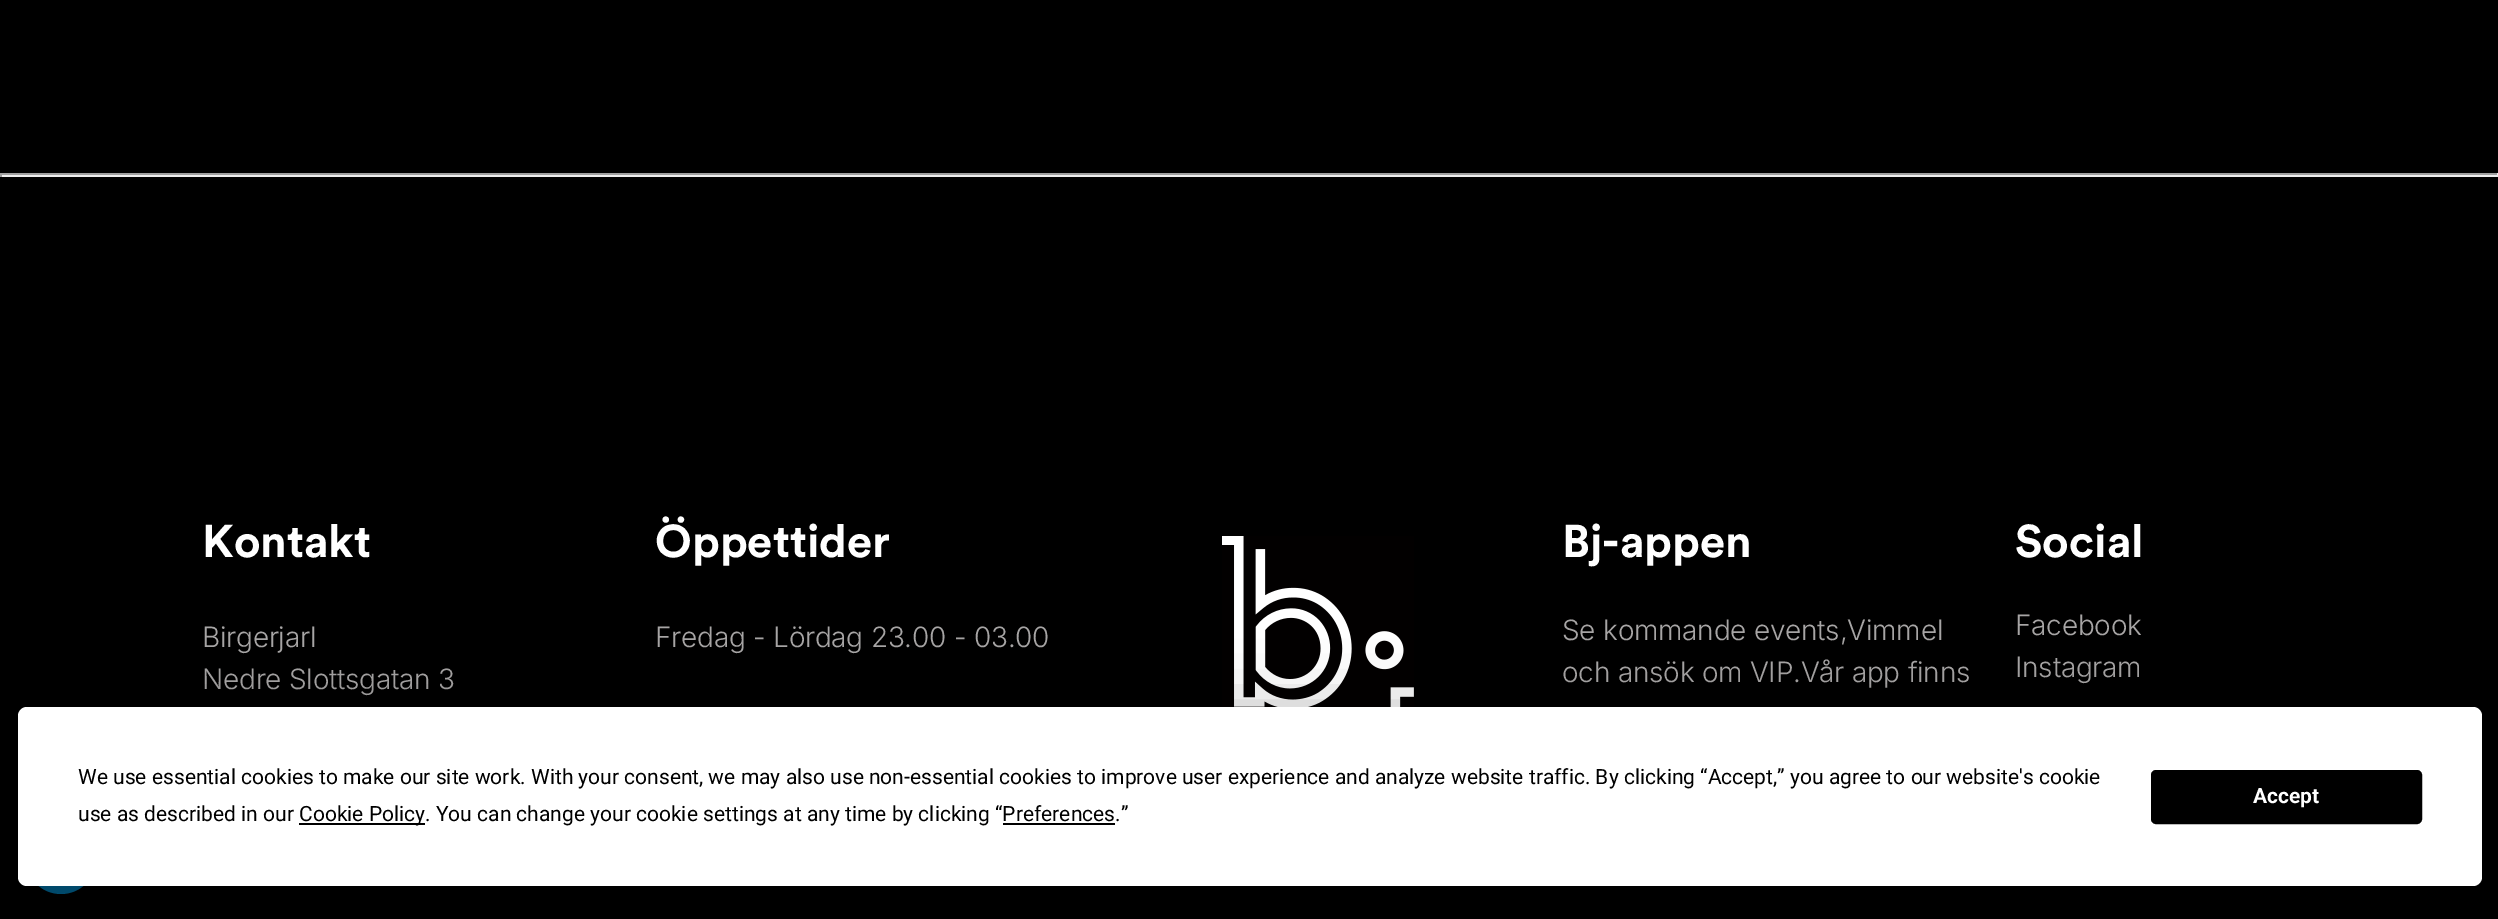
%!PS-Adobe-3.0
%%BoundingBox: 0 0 2498 919
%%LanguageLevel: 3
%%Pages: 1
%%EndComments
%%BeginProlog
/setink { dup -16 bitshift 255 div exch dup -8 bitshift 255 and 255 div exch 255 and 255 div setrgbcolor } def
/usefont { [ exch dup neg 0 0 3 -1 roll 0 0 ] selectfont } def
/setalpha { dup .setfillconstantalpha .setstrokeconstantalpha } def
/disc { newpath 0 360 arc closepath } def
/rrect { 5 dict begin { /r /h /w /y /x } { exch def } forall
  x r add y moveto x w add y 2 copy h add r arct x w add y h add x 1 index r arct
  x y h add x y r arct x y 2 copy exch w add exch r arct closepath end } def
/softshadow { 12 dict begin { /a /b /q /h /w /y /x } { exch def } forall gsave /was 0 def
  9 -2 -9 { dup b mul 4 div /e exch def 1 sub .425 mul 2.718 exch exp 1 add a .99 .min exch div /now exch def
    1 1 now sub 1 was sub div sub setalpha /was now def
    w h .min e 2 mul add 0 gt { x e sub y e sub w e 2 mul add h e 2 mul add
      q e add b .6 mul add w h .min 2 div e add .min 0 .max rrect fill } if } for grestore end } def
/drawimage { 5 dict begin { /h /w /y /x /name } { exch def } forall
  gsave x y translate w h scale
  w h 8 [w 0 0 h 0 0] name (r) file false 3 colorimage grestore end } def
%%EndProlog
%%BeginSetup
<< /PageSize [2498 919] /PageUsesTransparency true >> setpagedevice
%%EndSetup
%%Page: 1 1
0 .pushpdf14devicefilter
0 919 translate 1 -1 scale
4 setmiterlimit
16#000000 setink
0 0 2498 919 rectfill
[
    [0 173 2498 2 16#9F9F9F]
    [2497 173 1 4 16#EEEEEE]
    [0 175 2498 2 16#EEEEEE]
    [0 173 2 4 16#9F9F9F]
] { aload pop setink rectfill } forall
/Circular-Bold 45.5 usefont
16#FFFFFF setink
202 557 moveto (Kontakt) show
/Inter-Light 28 usefont
16#A7A5A5 setink
202 647 moveto -0.25 0 (Birgerjarl) ashow
202 689 moveto -0.25 0 (Nedre Slottsgatan 3) ashow
/Circular-Bold 45.5 usefont
16#FFFFFF setink
655 557 moveto (Öppettider) show
/Inter-Light 28 usefont
16#A7A5A5 setink
655 647 moveto -0.25 0 (Fredag - Lördag 23.00 - 03.00) ashow
(img1.raw) 1222 536 192 171 drawimage
/Circular-Bold 45.5 usefont
16#FFFFFF setink
1562 557 moveto (Bj-appen) show
/Inter-Light 28 usefont
16#A7A5A5 setink
1562 640 moveto -0.25 0 (Se kommande events,Vimmel) ashow
1562 682 moveto -0.25 0 (och ansök om VIP.Vår app finns) ashow
/Circular-Bold 45.5 usefont
16#FFFFFF setink
2015 557 moveto (Social) show
/Inter-Light 28 usefont
16#A7A5A5 setink
2015 635 moveto -0.25 0 (Facebook) ashow
2015 677 moveto -0.25 0 (Instagram) ashow
16#00547A setink
61 859 35 disc fill
16#000000 setink
18 707 2464 179 9 30.5 0.25 softshadow
16#FFFFFF setink
18 707 2464 179 9 rrect fill
/Roboto-Regular 21 usefont
16#000000 setink
78 784 moveto (We use essential cookies to make our site work. With your consent, we may also use non-essential cookies to improve user experience and analyze website traffic. By clicking “Accept,” you agree to our website's cookie) show
78 821 moveto (use as described in our) show
299 823 126 2 rectfill
299 821 moveto (Cookie Policy. You can change your cookie settings at any time by clicking “Preferences.”) show
1003 823 112 2 rectfill
2152 771 269 52 4 rrect gsave fill grestore
2 setlinewidth
stroke
/Roboto-Bold 21 usefont
16#FFFFFF setink
2253 803 moveto (Accept) show
.poppdf14devicefilter showpage
%%EOF
